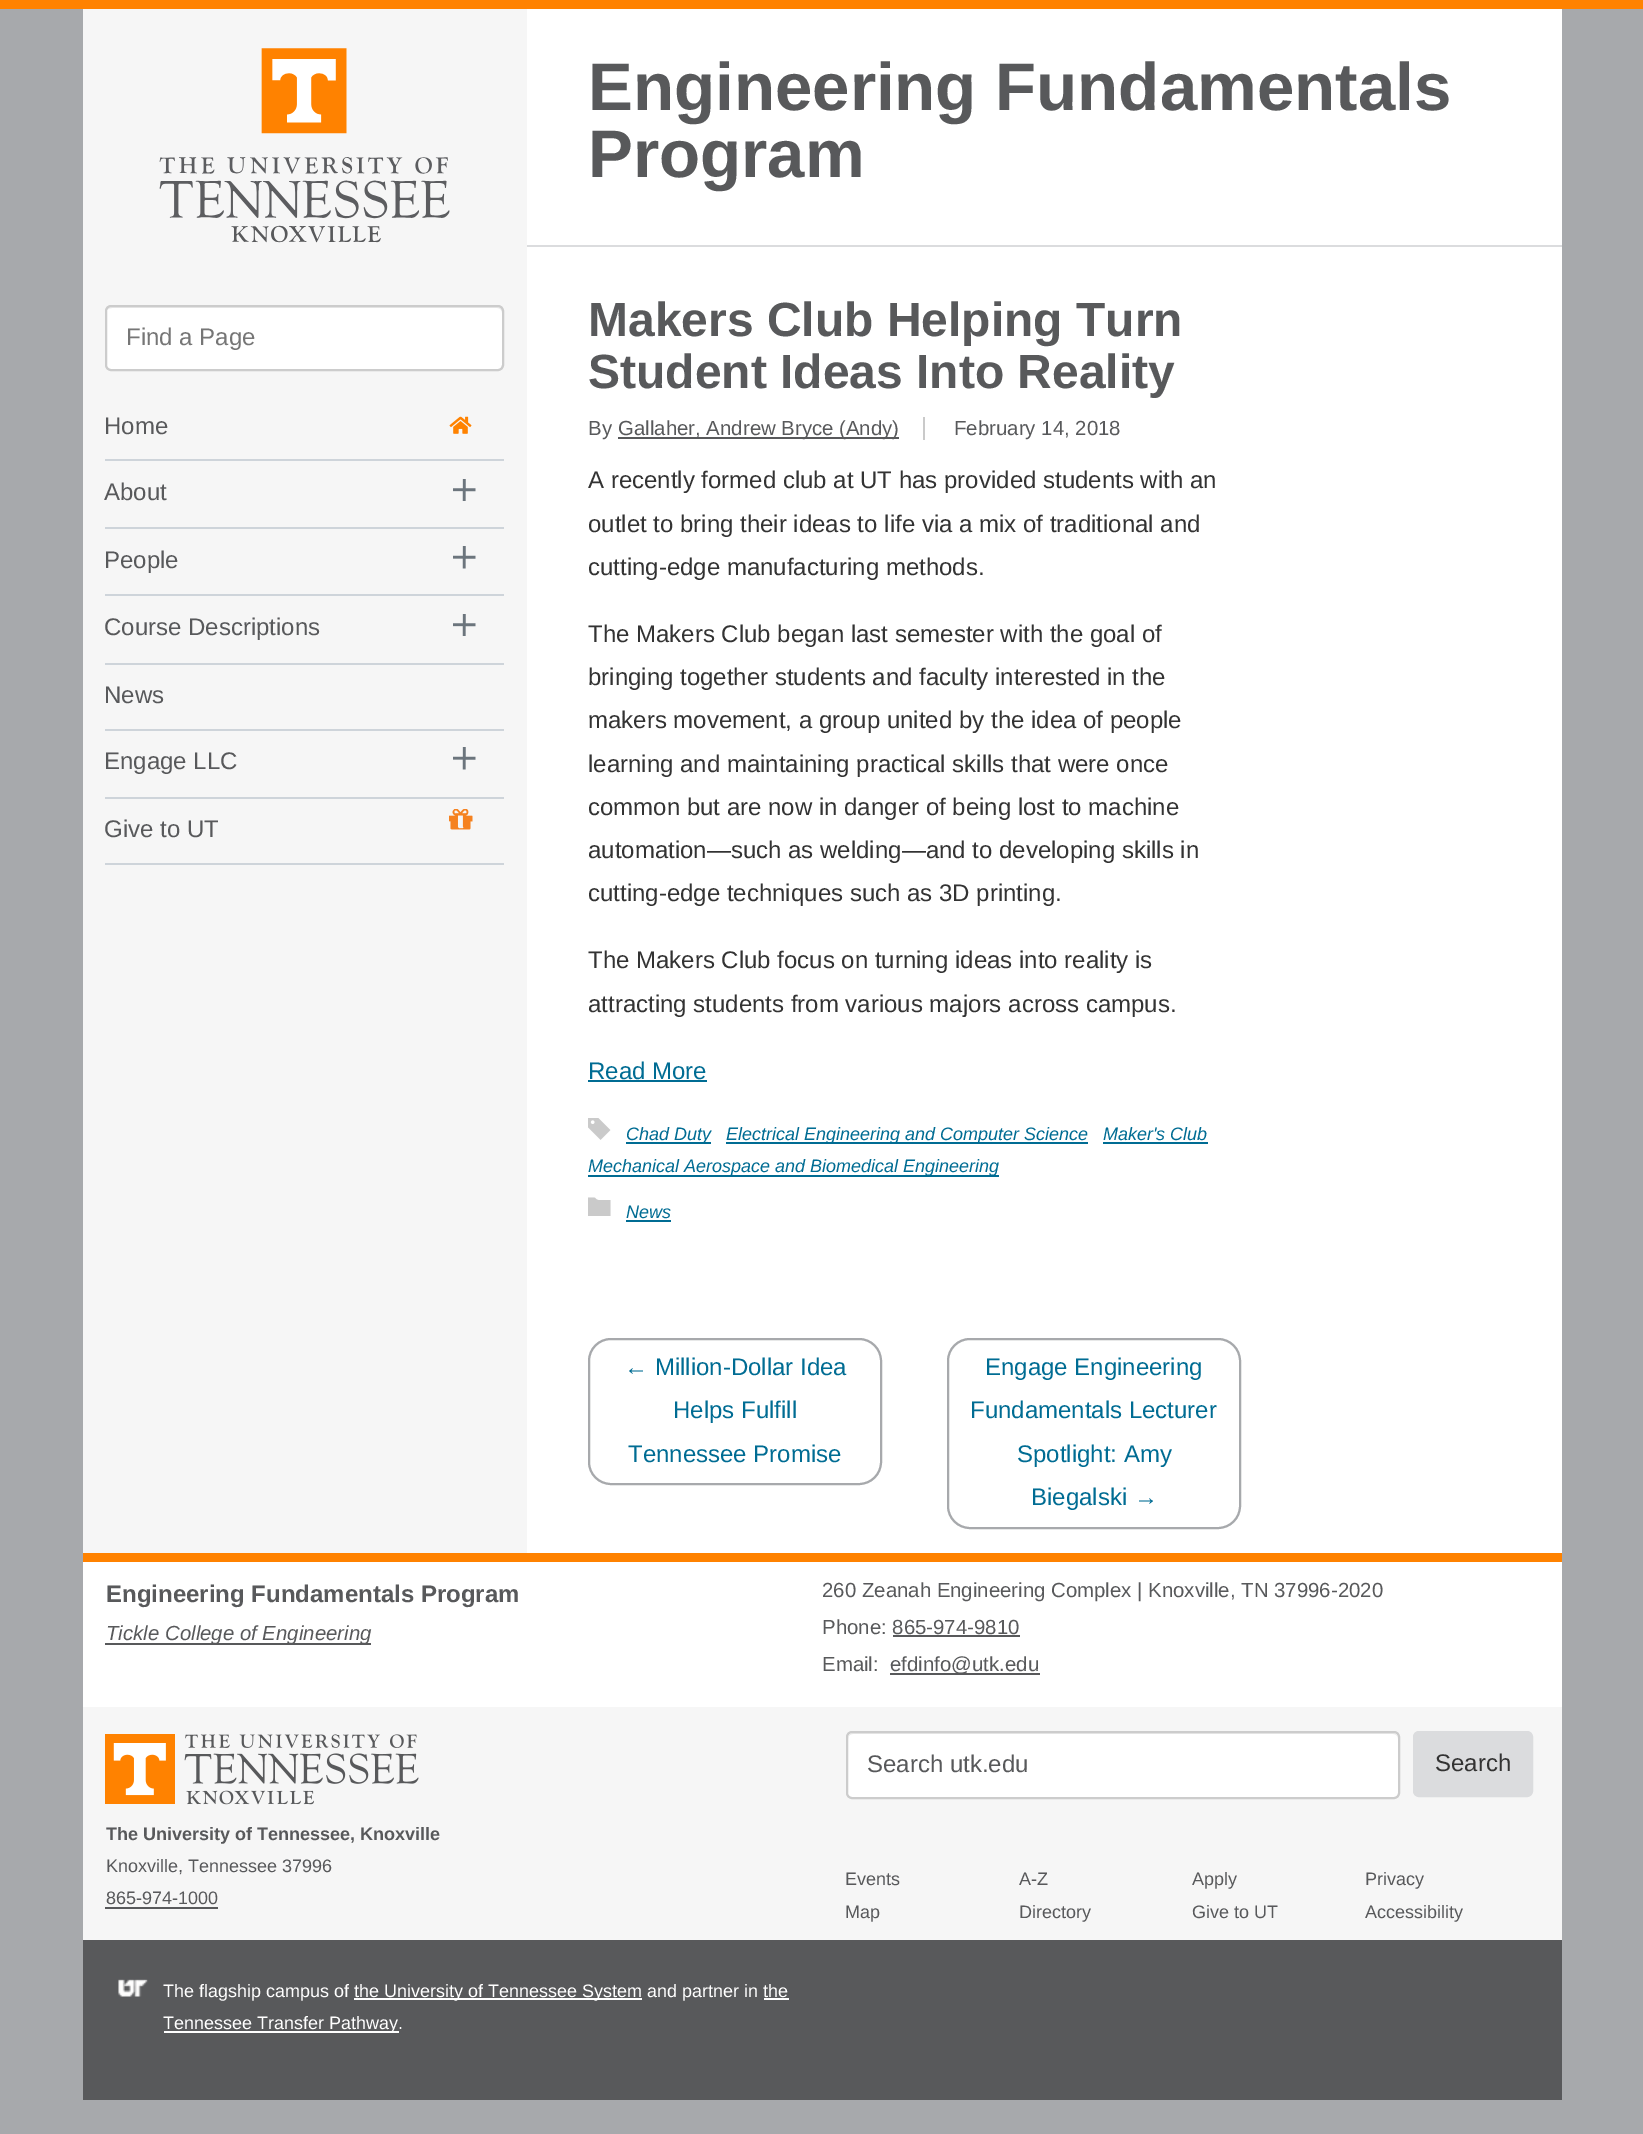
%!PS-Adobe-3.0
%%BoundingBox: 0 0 1643 2134
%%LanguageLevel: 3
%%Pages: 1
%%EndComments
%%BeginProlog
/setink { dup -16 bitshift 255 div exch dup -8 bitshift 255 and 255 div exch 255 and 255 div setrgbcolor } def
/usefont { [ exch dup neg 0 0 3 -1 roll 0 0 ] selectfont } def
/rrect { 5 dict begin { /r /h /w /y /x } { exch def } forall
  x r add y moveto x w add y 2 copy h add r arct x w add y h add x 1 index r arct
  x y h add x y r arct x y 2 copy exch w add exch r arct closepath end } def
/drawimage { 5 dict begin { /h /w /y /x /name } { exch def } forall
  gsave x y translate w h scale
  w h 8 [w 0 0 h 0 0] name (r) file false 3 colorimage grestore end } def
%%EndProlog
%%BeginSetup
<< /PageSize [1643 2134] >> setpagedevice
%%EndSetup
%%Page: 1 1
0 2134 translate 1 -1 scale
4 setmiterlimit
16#A7A9AC setink
0 0 1643 2134 rectfill
16#FF8200 setink
0 0 1643 9 rectfill
16#F6F6F6 setink
83 9 444 1544 rectfill
(img1.raw) 159 48 291 195 drawimage
16#FFFFFF setink
105 305 399 66 6 rrect fill
16#ECECEC setink
112 308 moveto 497 308 lineto 500 308 502 310 502 313 curveto 502 365 lineto 501 368 lineto 502 367 503 365 503 364 curveto 503 311 lineto 503 308 501 306 498 306 curveto 112 306 lineto 110 306 107 308 107 310 curveto 108 309 110 308 112 308 curveto closepath fill
16#CCCCCC setink
2 setlinewidth
106 306 397 64 5 rrect stroke
/LiberationSans-Regular 24 usefont
16#767676 setink
126 345 moveto (Find a Page) show
16#CED4DA setink
105 459 399 2 rectfill
16#58595B setink
104 434 moveto (Home) show
(img2.raw) 449 416 23 18 drawimage
16#CED4DA setink
105 527 399 2 rectfill
16#58595B setink
104 500 moveto (About) show
(img3.raw) 453 479 23 22 drawimage
16#CED4DA setink
105 594 399 2 rectfill
16#58595B setink
104 568 moveto (People) show
(img4.raw) 453 546 23 23 drawimage
16#CED4DA setink
105 663 399 2 rectfill
16#58595B setink
104 635 moveto (Course Descriptions) show
(img3.raw) 453 614 23 22 drawimage
16#CED4DA setink
105 729 399 2 rectfill
16#58595B setink
104 703 moveto (News) show
16#CED4DA setink
105 797 399 2 rectfill
16#58595B setink
104 769 moveto (Engage LLC) show
(img4.raw) 453 747 23 23 drawimage
16#CED4DA setink
105 863 399 2 rectfill
16#58595B setink
104 837 moveto (Give to UT) show
(img5.raw) 449 809 24 21 drawimage
16#FFFFFF setink
527 9 1035 1544 rectfill
16#DBDCDE setink
527 245 1035 2 rectfill
/LiberationSans-Bold 67.25 usefont
16#58595B setink
588 110 moveto (Engineering Fundamentals) show
588 177 moveto (Program) show
/LiberationSans-Bold 48 usefont
588 336 moveto (Makers Club Helping Turn) show
588 388 moveto (Student Ideas Into Reality) show
/LiberationSans-Regular 20.4 usefont
588 435 moveto (By) show
618 437 281 2 rectfill
618 435 moveto (Gallaher, Andrew Bryce \(Andy\)) show
16#CACACA setink
923 417 2 23 rectfill
16#58595B setink
954 435 moveto (February 14, 2018) show
/LiberationSans-Regular 24 usefont
16#333333 setink
[
    [(A recently formed club at UT has provided students with an) 588 488]
    [(outlet to bring their ideas to life via a mix of traditional and) 588 532]
    [(cutting-edge manufacturing methods.) 588 575]
    [(The Makers Club began last semester with the goal of) 588 642]
    [(bringing together students and faculty interested in the) 588 685]
    [(makers movement, a group united by the idea of people) 588 728]
    [(learning and maintaining practical skills that were once) 588 772]
    [(common but are now in danger of being lost to machine) 588 815]
    [(automation—such as welding—and to developing skills in) 588 858]
    [(cutting-edge techniques such as 3D printing.) 588 901]
    [(The Makers Club focus on turning ideas into reality is) 588 968]
    [(attracting students from various majors across campus.) 588 1012]
] { aload pop moveto show } forall
16#006C93 setink
588 1079 moveto (Read More) show
588 1080 119 2 rectfill
(img6.raw) 588 1118 23 22 drawimage
626 1142 85 2 rectfill
/LiberationSans-Italic 18 usefont
626 1140 moveto (Chad Duty) show
726 1142 362 2 rectfill
726 1140 moveto (Electrical Engineering and Computer Science) show
1103 1140 moveto (Maker's Club) show
1103 1142 105 2 rectfill
588 1175 411 2 rectfill
588 1172 moveto (Mechanical Aerospace and Biomedical Engineering) show
16#CACACA setink
598.5 1200 moveto 597 1200 596 1199 594.5 1197.5 curveto 588 1197.5 lineto 588 1216 lineto 610.5 1216 lineto 610.5 1200 lineto closepath fill
16#006C93 setink
626 1218 moveto (News) show
626 1220 45 2 rectfill
16#A7A9AC setink
589 1339 292 145 22 rrect stroke
/LiberationSans-Regular 24 usefont
16#006C93 setink
[
    [(← Million-Dollar Idea) 624 1375]
    [(Helps Fulfill) 673 1418]
    [(Tennessee Promise) 628 1462]
] { aload pop moveto show } forall
16#A7A9AC setink
948 1339 292 189 22 rrect stroke
16#006C93 setink
[
    [(Engage Engineering) 985 1375]
    [(Fundamentals Lecturer) 970 1418]
    [(Spotlight: Amy) 1017 1462]
    [(Biegalski →) 1031 1505]
] { aload pop moveto show } forall
16#FFFFFF setink
83 1562 1479 145 rectfill
16#FF8200 setink
83 1553 1479 9 rectfill
/LiberationSans-Bold 24 usefont
16#58595B setink
106 1602 moveto (Engineering Fundamentals Program) show
105 1643 266 2 rectfill
/LiberationSans-Italic 20.4 usefont
106 1640 moveto (Tickle College of Engineering) show
/LiberationSans-Regular 20.4 usefont
822 1597 moveto (260 Zeanah Engineering Complex | Knoxville, TN 37996-2020) show
822 1634 moveto (Phone: 865-974-9810) show
893 1635 127 2 rectfill
822 1671 moveto (Email:) show
890 1673 150 2 rectfill
890 1671 moveto (efdinfo@utk.edu) show
16#F6F6F6 setink
83 1707 1479 233 rectfill
(img7.raw) 105 1734 314 71 drawimage
/LiberationSans-Bold 18 usefont
16#58595B setink
106 1840 moveto (The University of Tennessee, Knoxville) show
/LiberationSans-Regular 18 usefont
106 1872 moveto (Knoxville, Tennessee 37996) show
106 1904 moveto (865-974-1000) show
105 1907 113 2 rectfill
16#FFFFFF setink
846 1731 554 68 6 rrect fill
16#ECECEC setink
853 1734 moveto 1393 1734 lineto 1396 1734 1398 1736 1398 1739 curveto 1398 1736 1396 1733 1393 1733 curveto 853 1733 lineto 850 1733 848 1736 848 1739 curveto 848 1736 850 1734 853 1734 curveto closepath fill
16#CCCCCC setink
847 1732 552 66 5 rrect stroke
/LiberationSans-Regular 24 usefont
16#58595B setink
867 1772 moveto (Search utk.edu) show
16#DBDCDE setink
1414 1732 118 64 5 rrect gsave fill grestore
stroke
16#333333 setink
1435 1771 moveto (Search) show
/LiberationSans-Regular 18 usefont
16#58595B setink
[
    [(Events) 845 1885]
    [(A-Z) 1019 1885]
    [(Apply) 1192 1885]
    [(Privacy) 1365 1885]
    [(Map) 845 1918]
    [(Directory) 1019 1918]
    [(Give to UT) 1192 1918]
    [(Accessibility) 1365 1918]
] { aload pop moveto show } forall
83 1940 1479 160 rectfill
(img8.raw) 118 1979 30 18 drawimage
16#FFFFFF setink
163 1997 moveto (The flagship campus of) show
354 1998 288 2 rectfill
354 1997 moveto (the University of Tennessee System and partner in the) show
164 2031 235 2 rectfill
163 2029 moveto (Tennessee Transfer Pathway.) show
764 1998 25 2 rectfill
showpage
%%EOF
